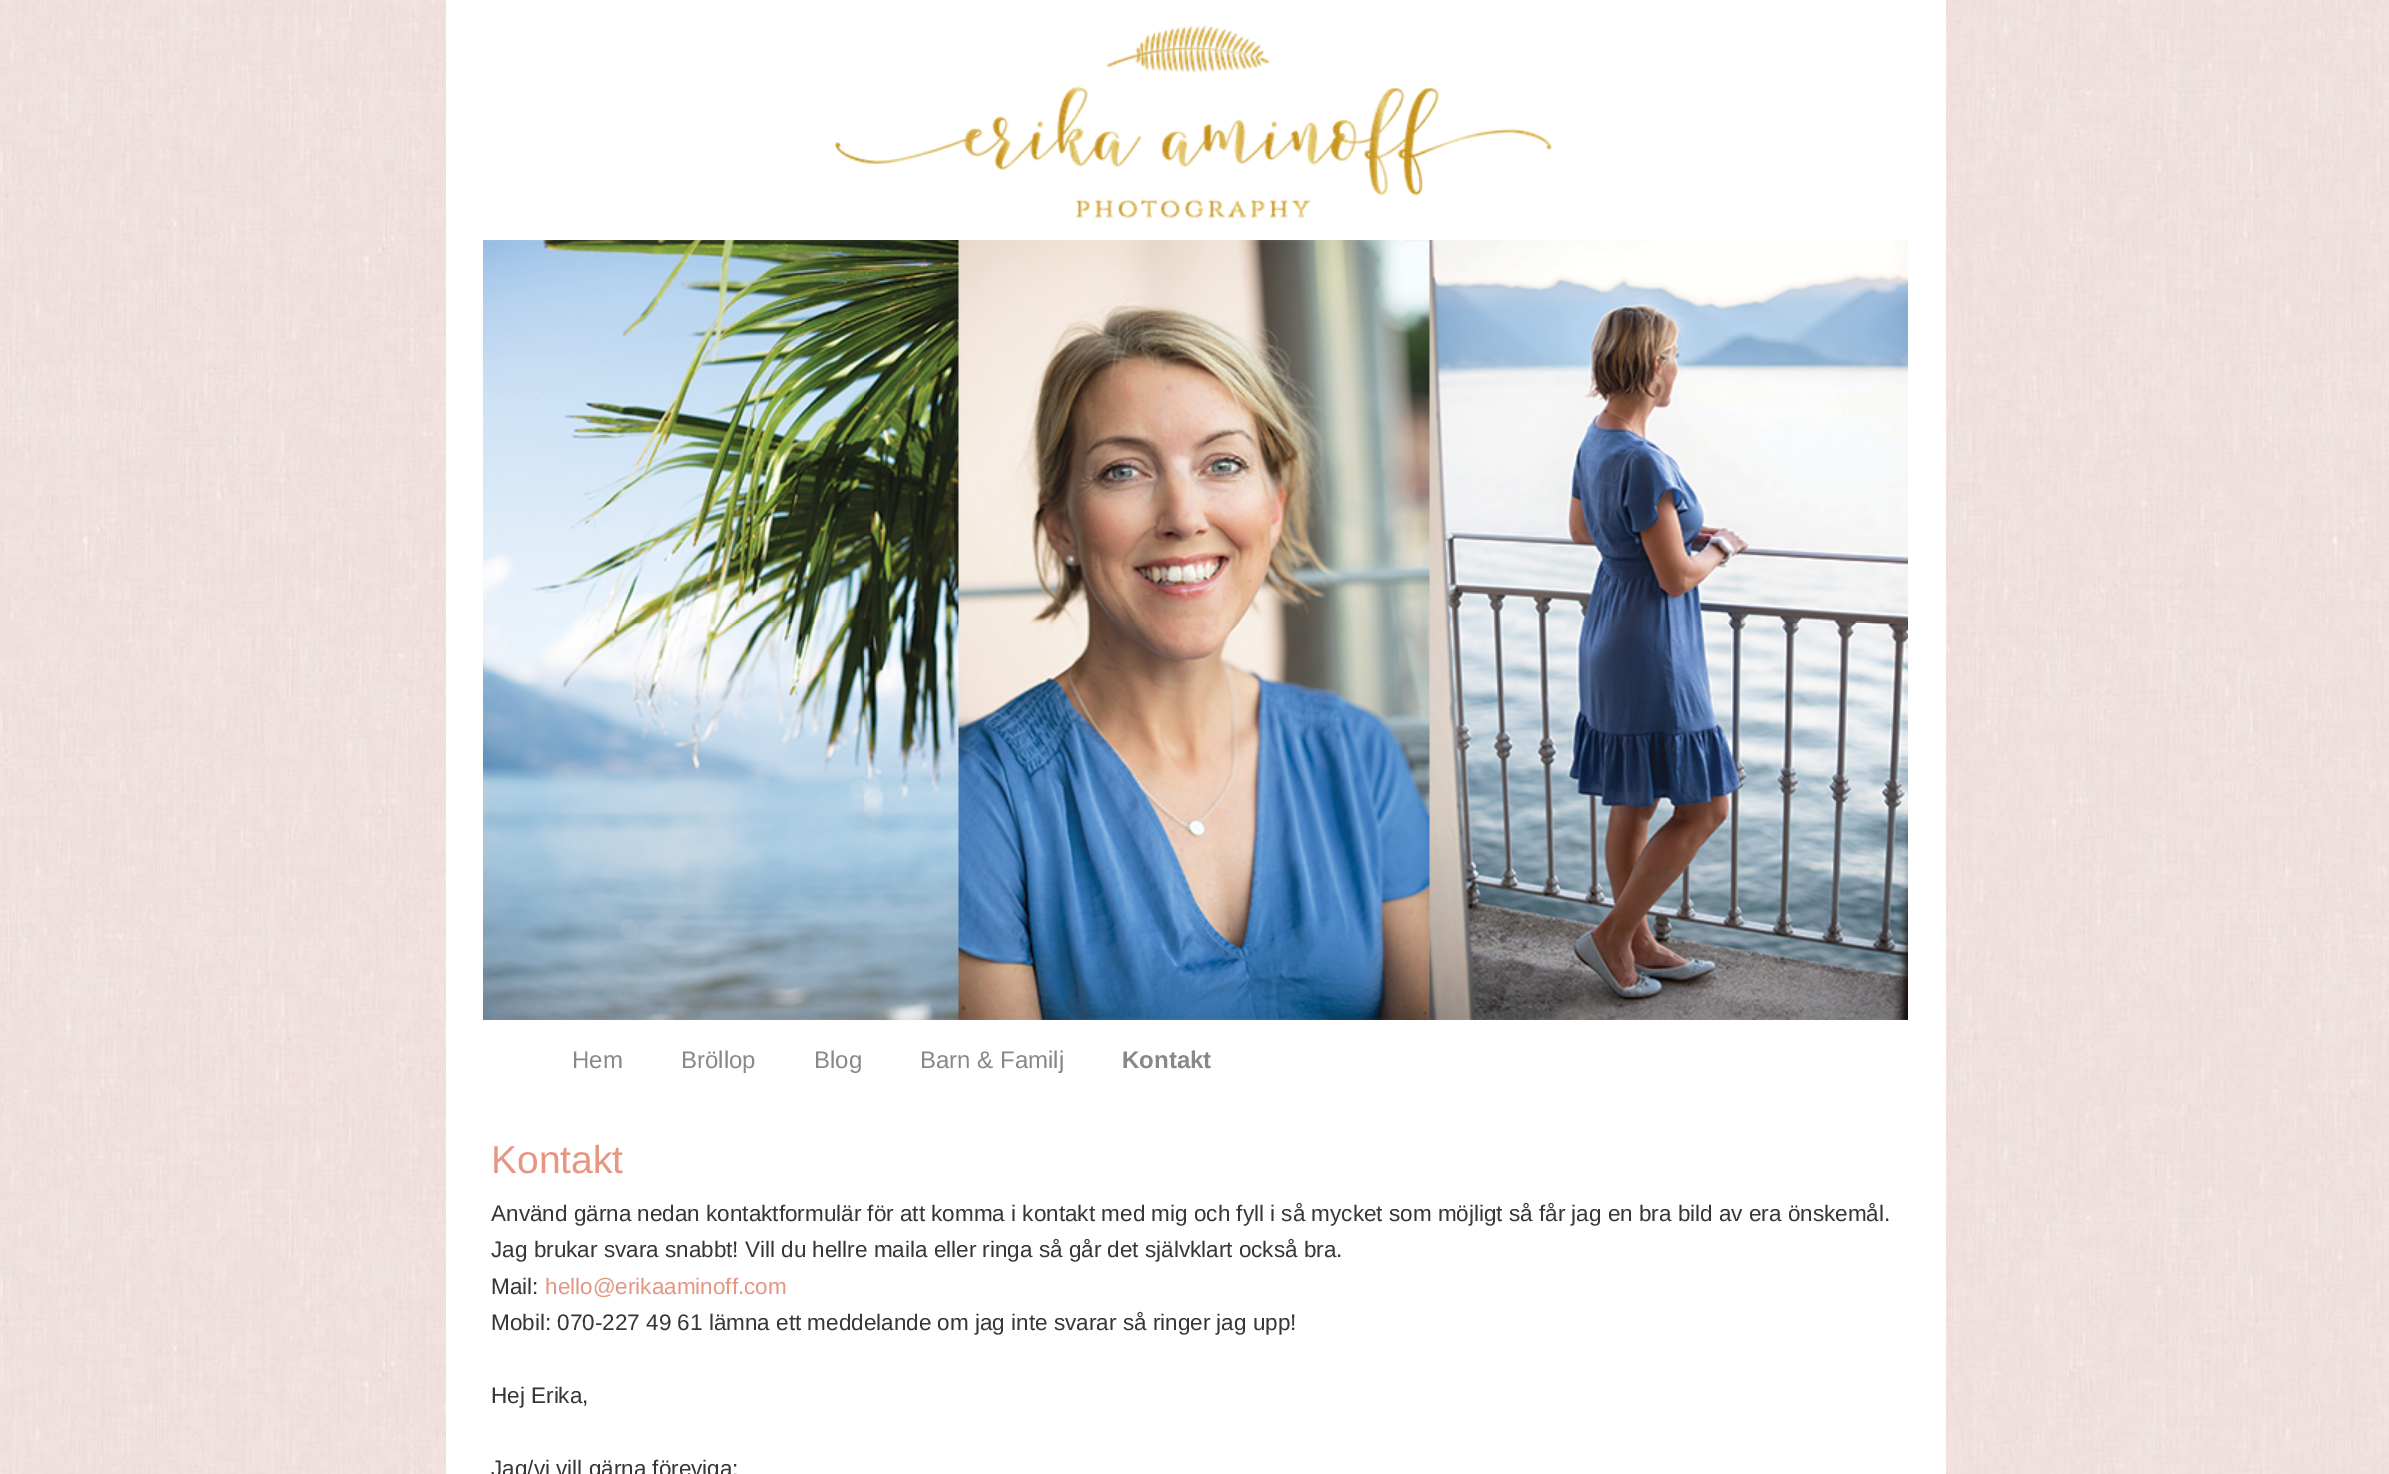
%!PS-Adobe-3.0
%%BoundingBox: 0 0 2389 1474
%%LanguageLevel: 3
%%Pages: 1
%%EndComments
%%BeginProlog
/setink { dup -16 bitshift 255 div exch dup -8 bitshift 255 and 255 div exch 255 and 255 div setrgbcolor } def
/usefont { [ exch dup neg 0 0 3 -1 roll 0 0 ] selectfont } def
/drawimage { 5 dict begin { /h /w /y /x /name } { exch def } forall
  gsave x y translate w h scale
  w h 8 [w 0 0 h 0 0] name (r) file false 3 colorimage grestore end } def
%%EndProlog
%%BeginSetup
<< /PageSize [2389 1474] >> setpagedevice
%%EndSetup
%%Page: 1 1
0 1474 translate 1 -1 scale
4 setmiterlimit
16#FFFFFF setink
0 0 2389 1474 rectfill
(img1.raw) 0 0 2389 1474 drawimage
446 0 1500 1474 rectfill
(img2.raw) 835 25 717 193 drawimage
(img3.raw) 483 240 1425 780 drawimage
/LiberationSans-Regular 24 usefont
16#888888 setink
[
    [(Hem) 572 1068]
    [(Bröllop) 681 1068]
    [(Blog) 814 1068]
    [(Barn & Familj) 920 1068]
] { aload pop moveto show } forall
/LiberationSans-Bold 24 usefont
1122 1068 moveto (Kontakt) show
/LiberationSans-Regular 39 usefont
16#E69784 setink
491 1173 moveto (Kontakt) show
/LiberationSans-Regular 22.5 usefont
16#373737 setink
[
    [(Använd gärna nedan kontaktformulär för att komma i kontakt med mig och fyll i så mycket som möjligt så får jag en bra bild av era önskemål.) 491 1221]
    [(Jag brukar svara snabbt! Vill du hellre maila eller ringa så går det självklart också bra.) 491 1257]
    [(Mail:) 491 1294]
] { aload pop moveto show } forall
16#E69784 setink
545 1294 moveto (hello@erikaaminoff.com) show
16#373737 setink
[
    [(Mobil: 070-227 49 61 lämna ett meddelande om jag inte svarar så ringer jag upp!) 491 1330]
    [(Hej Erika,) 491 1403]
    [(Jag/vi vill gärna föreviga:) 491 1476]
] { aload pop moveto show } forall
showpage
%%EOF
